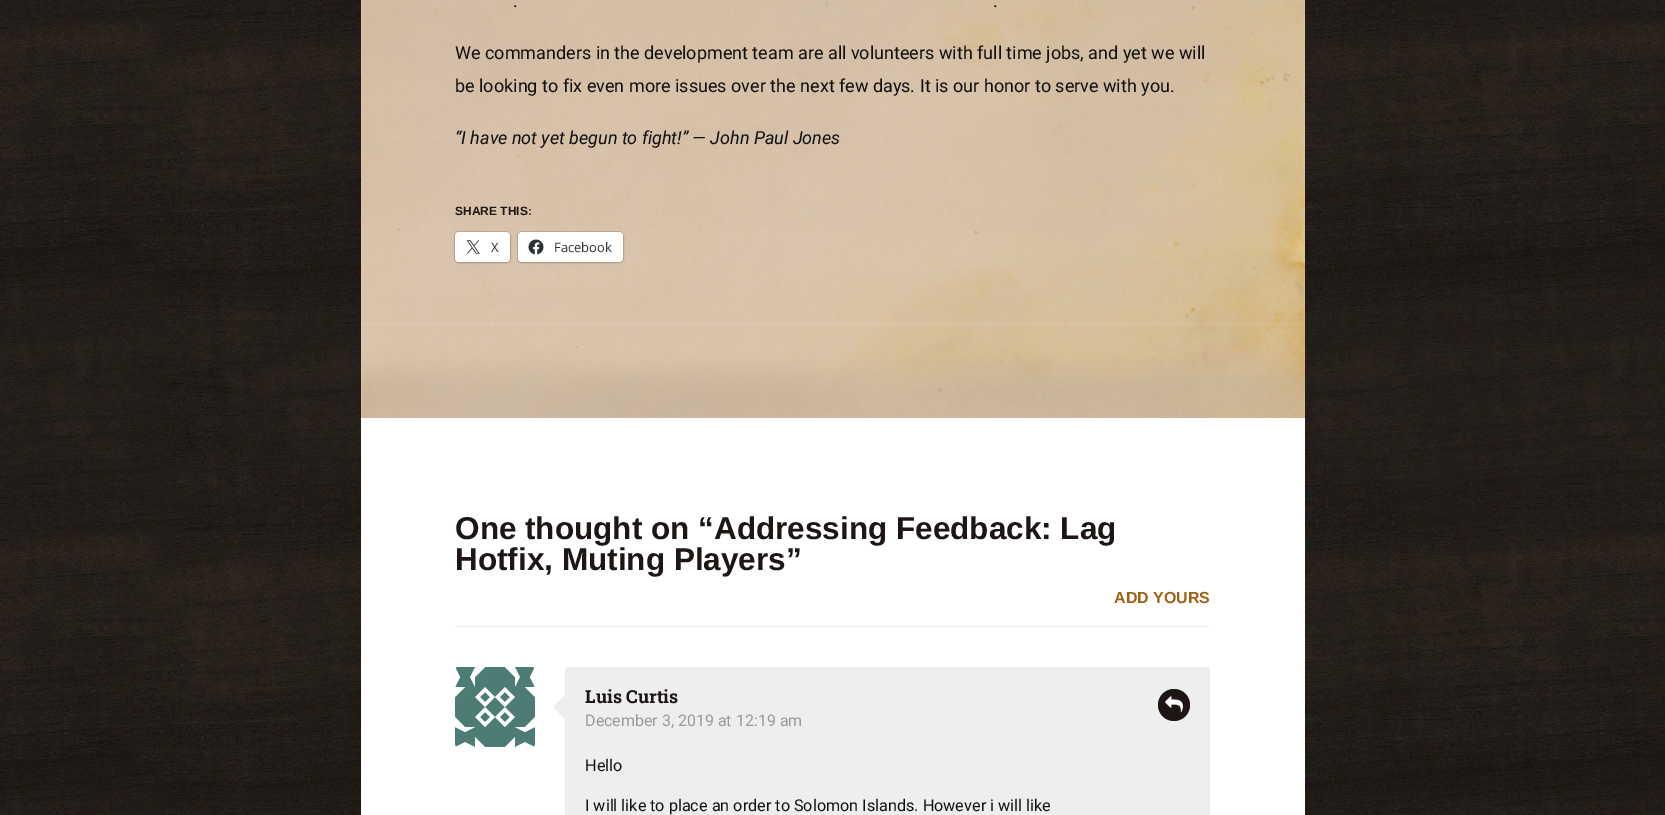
%!PS-Adobe-3.0
%%BoundingBox: 0 0 1665 815
%%LanguageLevel: 3
%%Pages: 1
%%EndComments
%%BeginProlog
/setink { dup -16 bitshift 255 div exch dup -8 bitshift 255 and 255 div exch 255 and 255 div setrgbcolor } def
/usefont { [ exch dup neg 0 0 3 -1 roll 0 0 ] selectfont } def
/setalpha { dup .setfillconstantalpha .setstrokeconstantalpha } def
/disc { newpath 0 360 arc closepath } def
/rrect { 5 dict begin { /r /h /w /y /x } { exch def } forall
  x r add y moveto x w add y 2 copy h add r arct x w add y h add x 1 index r arct
  x y h add x y r arct x y 2 copy exch w add exch r arct closepath end } def
/softshadow { 12 dict begin { /a /b /q /h /w /y /x } { exch def } forall gsave /was 0 def
  9 -2 -9 { dup b mul 4 div /e exch def 1 sub .425 mul 2.718 exch exp 1 add a .99 .min exch div /now exch def
    1 1 now sub 1 was sub div sub setalpha /was now def
    w h .min e 2 mul add 0 gt { x e sub y e sub w e 2 mul add h e 2 mul add
      q e add b .6 mul add w h .min 2 div e add .min 0 .max rrect fill } if } for grestore end } def
/drawimage { 5 dict begin { /h /w /y /x /name } { exch def } forall
  gsave x y translate w h scale
  w h 8 [w 0 0 h 0 0] name (r) file false 3 colorimage grestore end } def
%%EndProlog
%%BeginSetup
<< /PageSize [1665 815] /PageUsesTransparency true >> setpagedevice
%%EndSetup
%%Page: 1 1
0 .pushpdf14devicefilter
0 815 translate 1 -1 scale
4 setmiterlimit
16#FFFFFF setink
0 0 1665 815 rectfill
(img1.raw) 0 0 1665 815 drawimage
(img2.raw) 361 0 944 418 drawimage
/Roboto-Regular 18 usefont
16#101010 setink
[
    [(.) 513 7]
    [(.) 993 7]
    [(We commanders in the development team are all volunteers with full time jobs, and yet we will) 455 59]
    [(be looking to fix even more issues over the next few days. It is our honor to serve with you.) 455 92]
] { aload pop moveto show } forall
/Roboto-Italic 18 usefont
455 144 moveto (“I have not yet begun to fight!” — John Paul Jones) show
/LiberationSans-Bold 12 usefont
16#1D1615 setink
455 215 moveto (SHARE THIS:) show
0.12 setalpha
16#000000 setink
454.5 231.5 56 31 4.5 rrect stroke
1 setalpha
455 233 55 30 4 1 0.12 softshadow
16#FFFFFF setink
455 232 55 30 4 rrect fill
(img3.raw) 466 240 14 14 drawimage
/OpenSans-Regular 13 usefont
16#2C3338 setink
491 252 moveto (X) show
0.12 setalpha
16#000000 setink
517.5 231.5 106 31 4.5 rrect stroke
1 setalpha
518 233 105 30 4 1 0.12 softshadow
16#FFFFFF setink
518 232 105 30 4 rrect fill
(img4.raw) 528 239 16 16 drawimage
16#2C3338 setink
554 252 moveto (Facebook) show
16#FFFFFF setink
361 418 944 397 rectfill
16#EEEEEE setink
455 626 755 1 rectfill
/LiberationSans-Bold 31.5 usefont
16#1D1615 setink
455 539 moveto (One thought on “Addressing Feedback: Lag) show
455 570 moveto (Hotfix, Muting Players”) show
/LiberationSans-Bold 16 usefont
16#9D6214 setink
1114 603 moveto (ADD YOURS) show
16#EEEEEE setink
565 667 645 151 3 rrect fill
565 695 moveto 565 719 lineto 553 707 lineto closepath fill
(img5.raw) 455 667 80 80 drawimage
/RobotoSlab-Bold 18 usefont
16#1D1615 setink
585 703 moveto (Luis Curtis) show
/Roboto-Regular 16 usefont
16#999999 setink
585 726 moveto (December 3, 2019 at 12:19 am) show
16#1D1615 setink
1174 705 16 disc fill
(img6.raw) 1165 696 18 17 drawimage
/Roboto-Regular 16.2 usefont
16#101010 setink
585 771 moveto (Hello) show
585 811 moveto (I will like to place an order to Solomon Islands. However i will like) show
.poppdf14devicefilter showpage
%%EOF
